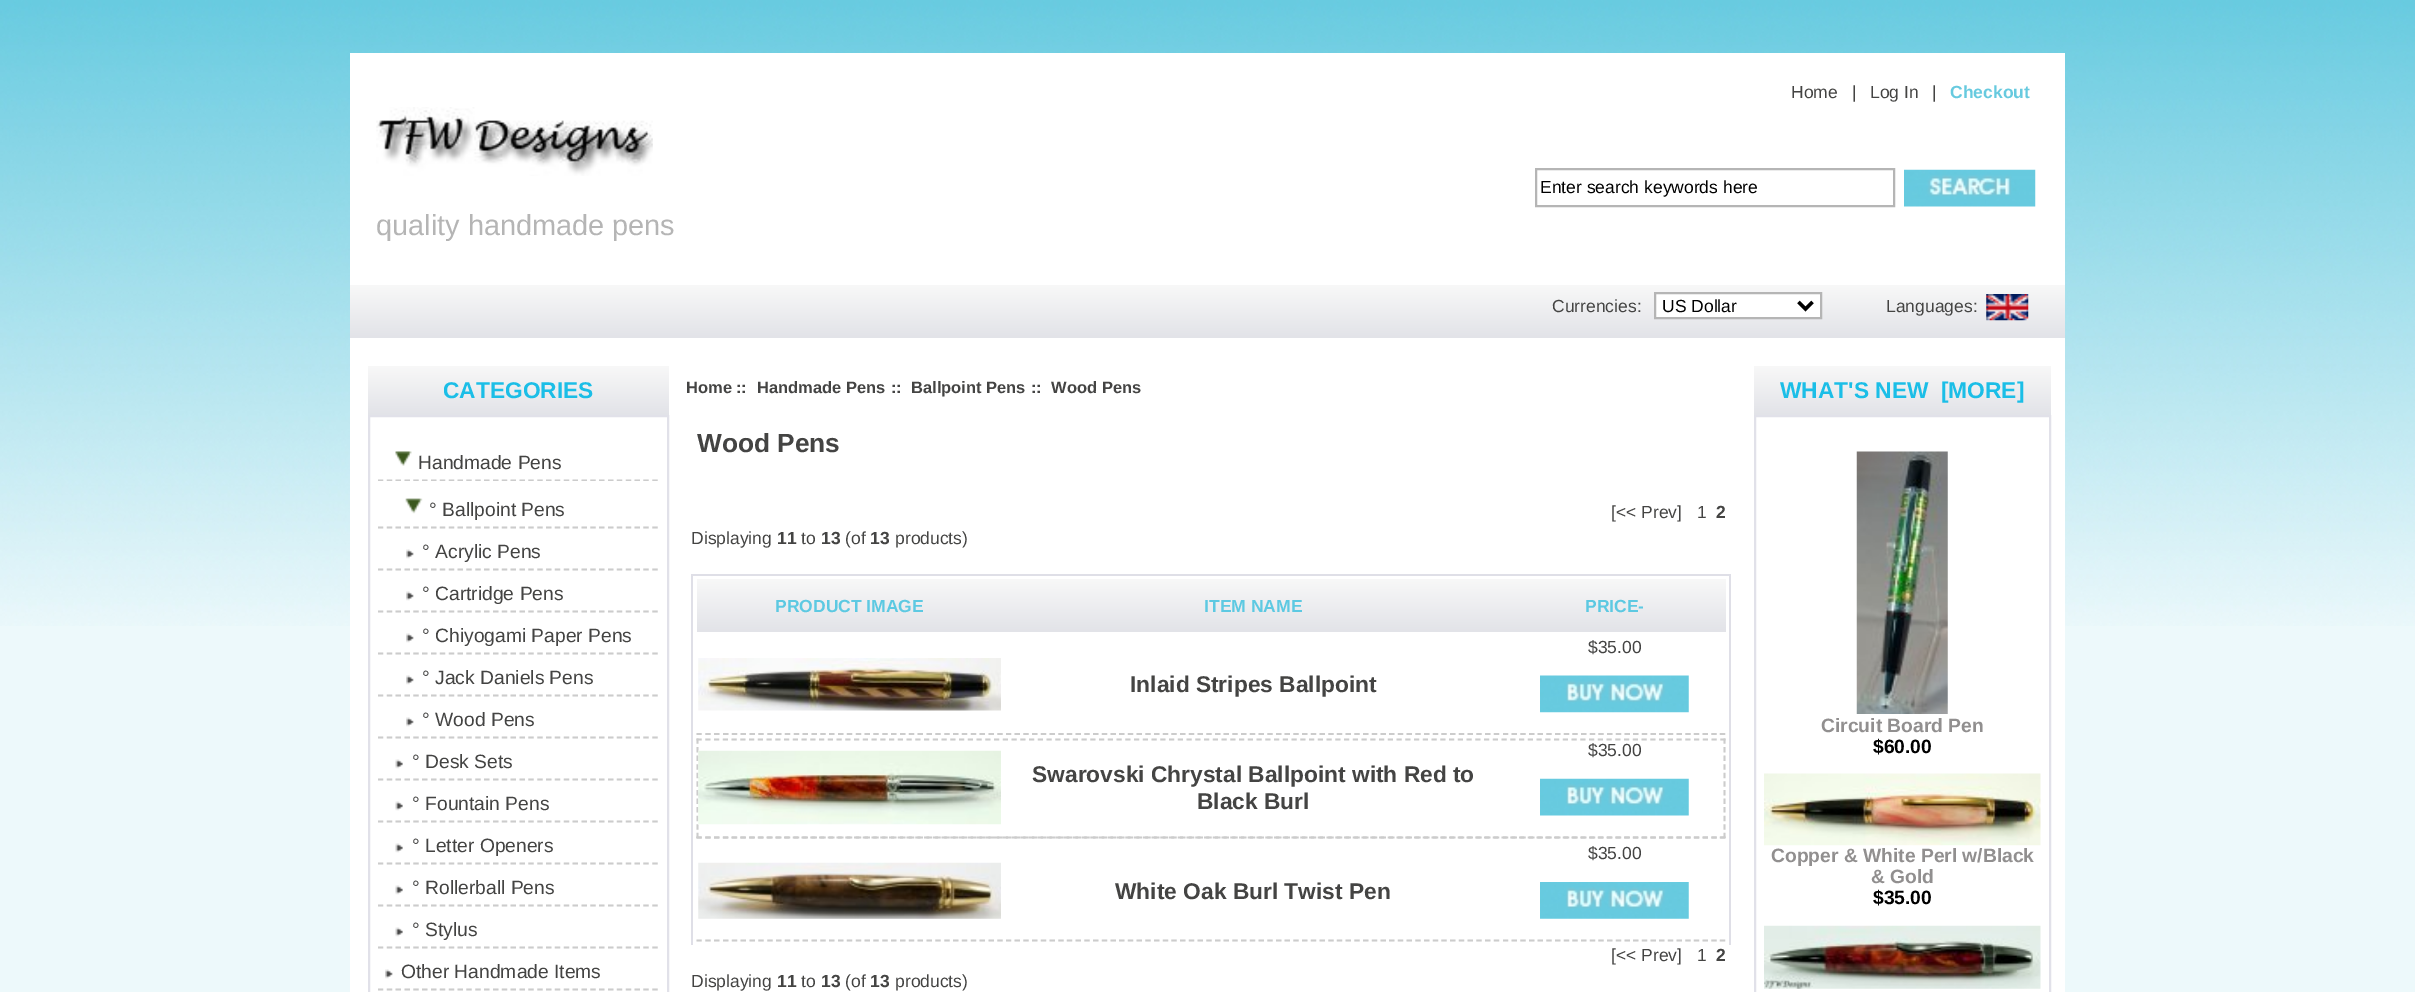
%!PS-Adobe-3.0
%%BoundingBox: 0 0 2415 992
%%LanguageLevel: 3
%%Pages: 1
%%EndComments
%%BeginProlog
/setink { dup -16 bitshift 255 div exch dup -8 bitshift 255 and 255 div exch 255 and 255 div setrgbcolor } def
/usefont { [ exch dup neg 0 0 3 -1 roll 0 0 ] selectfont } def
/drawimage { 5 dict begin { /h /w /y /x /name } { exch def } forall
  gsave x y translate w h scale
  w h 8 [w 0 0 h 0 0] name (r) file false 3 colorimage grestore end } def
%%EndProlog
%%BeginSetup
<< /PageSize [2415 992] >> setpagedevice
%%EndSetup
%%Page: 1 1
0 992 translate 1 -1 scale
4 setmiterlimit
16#EDF9FB setink
0 0 2415 992 rectfill
(img1.raw) 0 0 2415 626 drawimage
16#FFFFFF setink
350 53 1715 939 rectfill
/LiberationSans-Regular 17.5 usefont
16#444443 setink
[
    [(Home) 1791 98]
    [(|) 1852 98]
    [(Log In) 1870 98]
    [(|) 1932 98]
] { aload pop moveto show } forall
/LiberationSans-Bold 17.5 usefont
16#67CADF setink
1950 98 moveto (Checkout) show
16#B5B5B5 setink
2 setlinewidth
1536 169 358 37 rectstroke
/LiberationSans-Regular 17.5 usefont
16#000000 setink
1540 193 moveto (Enter search keywords here) show
(img2.raw) 1904 169 132 38 drawimage
(img3.raw) 376 107 277 69 drawimage
/LiberationSans-Regular 28.9 usefont
16#B5B5B5 setink
376 235 moveto (quality handmade pens) show
gsave 350 285 moveto 2065 285 lineto 2065 338 lineto 350 338 lineto closepath clip newpath
<< /ShadingType 2 /ColorSpace /DeviceRGB /Coords [350 285 350 338] /Extend [true true] /Function << /FunctionType 2 /Domain [0 1] /C0 [0.973 0.973 0.973] /C1 [0.886 0.89 0.91] /N 1 >> >> shfill grestore
/LiberationSans-Regular 17.5 usefont
16#444443 setink
1552 312 moveto (Currencies:) show
16#FFFFFF setink
1655 293 moveto 1821 293 lineto 1821 318 lineto 1655 318 lineto closepath gsave fill grestore
16#B5B5B5 setink
stroke
16#000000 setink
3.5 setlinewidth
1798.5 302 moveto 1805.5 309 lineto 1812.5 302 lineto stroke
1662 312 moveto (US Dollar) show
16#444443 setink
1886 312 moveto (Languages:) show
(img4.raw) 1986 294 43 27 drawimage
gsave 368 366 moveto 669 366 lineto 669 415 lineto 368 415 lineto closepath clip newpath
<< /ShadingType 2 /ColorSpace /DeviceRGB /Coords [368 366 368 415] /Extend [true true] /Function << /FunctionType 2 /Domain [0 1] /C0 [0.973 0.973 0.973] /C1 [0.886 0.89 0.91] /N 1 >> >> shfill grestore
/LiberationSans-Bold 22.75 usefont
16#1BBEE7 setink
443 398 moveto (CATEGORIES) show
16#E1E1E9 setink
2 setlinewidth
369 416 299 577 rectstroke
16#CCCCCC setink
1.8 setlinewidth
[5.25 3.6] 0 setdash
378 480.5 moveto 658 480.5 lineto stroke
(img5.raw) 395 451 17 15 drawimage
/LiberationSans-Regular 19.25 usefont
16#444443 setink
418 469 moveto (Handmade Pens) show
16#FFFFFF setink
378 481 280 1 rectfill
16#CCCCCC setink
378 527.5 moveto 658 527.5 lineto stroke
(img6.raw) 405 498 18 16 drawimage
16#444443 setink
429 516 moveto (° Ballpoint Pens) show
16#CCCCCC setink
378 569.5 moveto 658 569.5 lineto stroke
(img7.raw) 406 549 8 10 drawimage
16#444443 setink
422 558 moveto (° Acrylic Pens) show
16#CCCCCC setink
378 611.5 moveto 658 611.5 lineto stroke
(img7.raw) 406 591 8 10 drawimage
16#444443 setink
422 600 moveto (° Cartridge Pens) show
16#CCCCCC setink
378 653.5 moveto 658 653.5 lineto stroke
(img7.raw) 406 633 8 10 drawimage
16#444443 setink
422 642 moveto (° Chiyogami Paper Pens) show
16#CCCCCC setink
378 695.5 moveto 658 695.5 lineto stroke
(img7.raw) 406 675 8 10 drawimage
16#444443 setink
422 684 moveto (° Jack Daniels Pens) show
16#CCCCCC setink
378 737.5 moveto 658 737.5 lineto stroke
(img7.raw) 406 717 8 10 drawimage
16#444443 setink
422 726 moveto (° Wood Pens) show
16#CCCCCC setink
378 779.5 moveto 658 779.5 lineto stroke
(img8.raw) 395 759 8 10 drawimage
16#444443 setink
412 768 moveto (° Desk Sets) show
16#CCCCCC setink
378 821.5 moveto 658 821.5 lineto stroke
(img8.raw) 395 801 8 10 drawimage
16#444443 setink
412 810 moveto (° Fountain Pens) show
16#CCCCCC setink
378 863.5 moveto 658 863.5 lineto stroke
(img8.raw) 395 843 8 10 drawimage
16#444443 setink
412 852 moveto (° Letter Openers) show
16#CCCCCC setink
378 905.5 moveto 658 905.5 lineto stroke
(img8.raw) 395 885 8 10 drawimage
16#444443 setink
412 894 moveto (° Rollerball Pens) show
16#CCCCCC setink
378 947.5 moveto 658 947.5 lineto stroke
(img8.raw) 395 927 8 10 drawimage
16#444443 setink
412 936 moveto (° Stylus) show
16#CCCCCC setink
378 989.5 moveto 658 989.5 lineto stroke
(img7.raw) 385 969 8 10 drawimage
16#444443 setink
401 978 moveto (Other Handmade Items) show
/LiberationSans-Bold 16.5 usefont
[
    [(Home) 686 393]
    [(::) 736 393]
    [(Handmade Pens) 757 393]
    [(::) 891 393]
    [(Ballpoint Pens) 911 393]
    [(::  Wood Pens) 1031 393]
] { aload pop moveto show } forall
/LiberationSans-Bold 26.25 usefont
697 452 moveto (Wood Pens) show
/LiberationSans-Regular 17.5 usefont
1611 518 moveto ([<< Prev]) show
1697 518 moveto (1) show
/LiberationSans-Bold 17.5 usefont
1716 518 moveto (2) show
/LiberationSans-Regular 17.5 usefont
691 544 moveto (Displaying) show
/LiberationSans-Bold 17.5 usefont
777 544 moveto (11) show
/LiberationSans-Regular 17.5 usefont
801 544 moveto (to) show
/LiberationSans-Bold 17.5 usefont
821 544 moveto (13) show
/LiberationSans-Regular 17.5 usefont
845 544 moveto (\(of) show
/LiberationSans-Bold 17.5 usefont
870 544 moveto (13) show
/LiberationSans-Regular 17.5 usefont
895 544 moveto (products\)) show
[
    [691 574 1040 2 16#DFDFE7]
    [1729 574 2 371 16#DFDFE7]
    [691 574 2 371 16#DFDFE7]
] { aload pop setink rectfill } forall
gsave 697 579 moveto 1726 579 lineto 1726 632 lineto 697 632 lineto closepath clip newpath
<< /ShadingType 2 /ColorSpace /DeviceRGB /Coords [697 579 697 632] /Extend [true true] /Function << /FunctionType 2 /Domain [0 1] /C0 [0.973 0.973 0.973] /C1 [0.886 0.89 0.91] /N 1 >> >> shfill grestore
/LiberationSans-Bold 17.5 usefont
16#5DC9E2 setink
[
    [(PRODUCT IMAGE) 775 612]
    [(ITEM NAME) 1204 612]
    [(PRICE-) 1585 612]
] { aload pop moveto show } forall
16#CCCCCC setink
[5.25 3.43] 0 setdash
1503 734 moveto 1725.5 734 lineto stroke
/LiberationSans-Regular 17.5 usefont
16#444443 setink
1588 653 moveto ($35.00) show
(img9.raw) 1540 675 149 38 drawimage
16#CCCCCC setink
[5.25 3.6] 0 setdash
696.5 734 moveto 1003 734 lineto stroke
(img10.raw) 698 658 303 53 drawimage
[5.25 3.46] 0 setdash
1006 734 moveto 1500 734 lineto stroke
/LiberationSans-Bold 22.75 usefont
16#444443 setink
1130 692 moveto (Inlaid Stripes Ballpoint) show
16#CCCCCC setink
[5.25 3.5] 0 setdash
696.5 739.5 moveto 1725.5 739.5 lineto stroke
[5.25 3.34] 0 setdash
1724.5 738.5 moveto 1724.5 838 lineto stroke
[5.25 3.5] 0 setdash
696.5 837.5 moveto 1725.5 837.5 lineto stroke
[5.25 3.34] 0 setdash
697.5 738.5 moveto 697.5 838 lineto stroke
[5.25 3.6] 0 setdash
696.5 837.5 moveto 1003 837.5 lineto stroke
(img11.raw) 698 750 303 75 drawimage
[5.25 3.46] 0 setdash
1006 837.5 moveto 1500 837.5 lineto stroke
16#444443 setink
1032 782 moveto (Swarovski Chrystal Ballpoint with Red to) show
1197 809 moveto (Black Burl) show
16#CCCCCC setink
[5.25 3.43] 0 setdash
1503 837.5 moveto 1725.5 837.5 lineto stroke
/LiberationSans-Regular 17.5 usefont
16#444443 setink
1588 756 moveto ($35.00) show
(img12.raw) 1540 778 149 38 drawimage
16#CCCCCC setink
1503 940.5 moveto 1725.5 940.5 lineto stroke
16#444443 setink
1588 859 moveto ($35.00) show
(img13.raw) 1540 882 149 37 drawimage
16#CCCCCC setink
[5.25 3.6] 0 setdash
696.5 940.5 moveto 1003 940.5 lineto stroke
(img14.raw) 698 862 303 57 drawimage
[5.25 3.46] 0 setdash
1006 940.5 moveto 1500 940.5 lineto stroke
/LiberationSans-Bold 22.75 usefont
16#444443 setink
1115 899 moveto (White Oak Burl Twist Pen) show
/LiberationSans-Regular 17.5 usefont
1611 961 moveto ([<< Prev]) show
1697 961 moveto (1) show
/LiberationSans-Bold 17.5 usefont
1716 961 moveto (2) show
/LiberationSans-Regular 17.5 usefont
691 987 moveto (Displaying) show
/LiberationSans-Bold 17.5 usefont
777 987 moveto (11) show
/LiberationSans-Regular 17.5 usefont
801 987 moveto (to) show
/LiberationSans-Bold 17.5 usefont
821 987 moveto (13) show
/LiberationSans-Regular 17.5 usefont
845 987 moveto (\(of) show
/LiberationSans-Bold 17.5 usefont
870 987 moveto (13) show
/LiberationSans-Regular 17.5 usefont
895 987 moveto (products\)) show
gsave 1754 366 moveto 2051 366 lineto 2051 415 lineto 1754 415 lineto closepath clip newpath
<< /ShadingType 2 /ColorSpace /DeviceRGB /Coords [1754 366 1754 415] /Extend [true true] /Function << /FunctionType 2 /Domain [0 1] /C0 [0.973 0.973 0.973] /C1 [0.886 0.89 0.91] /N 1 >> >> shfill grestore
/LiberationSans-Bold 22.75 usefont
16#1BBEE7 setink
1780 398 moveto (WHAT'S NEW  [MORE]) show
16#E1E1E9 setink
2 setlinewidth
[] 0 setdash
1755 416 295 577 rectstroke
(img15.raw) 1856 451 92 263 drawimage
/LiberationSans-Bold 19.25 usefont
16#918F8F setink
1821 732 moveto (Circuit Board Pen) show
16#000000 setink
1873 753 moveto ($60.00) show
(img16.raw) 1764 773 277 73 drawimage
16#918F8F setink
1771 862 moveto (Copper & White Perl w/Black) show
1871 883 moveto (& Gold) show
16#000000 setink
1873 904 moveto ($35.00) show
(img17.raw) 1764 925 277 64 drawimage
showpage
%%EOF
